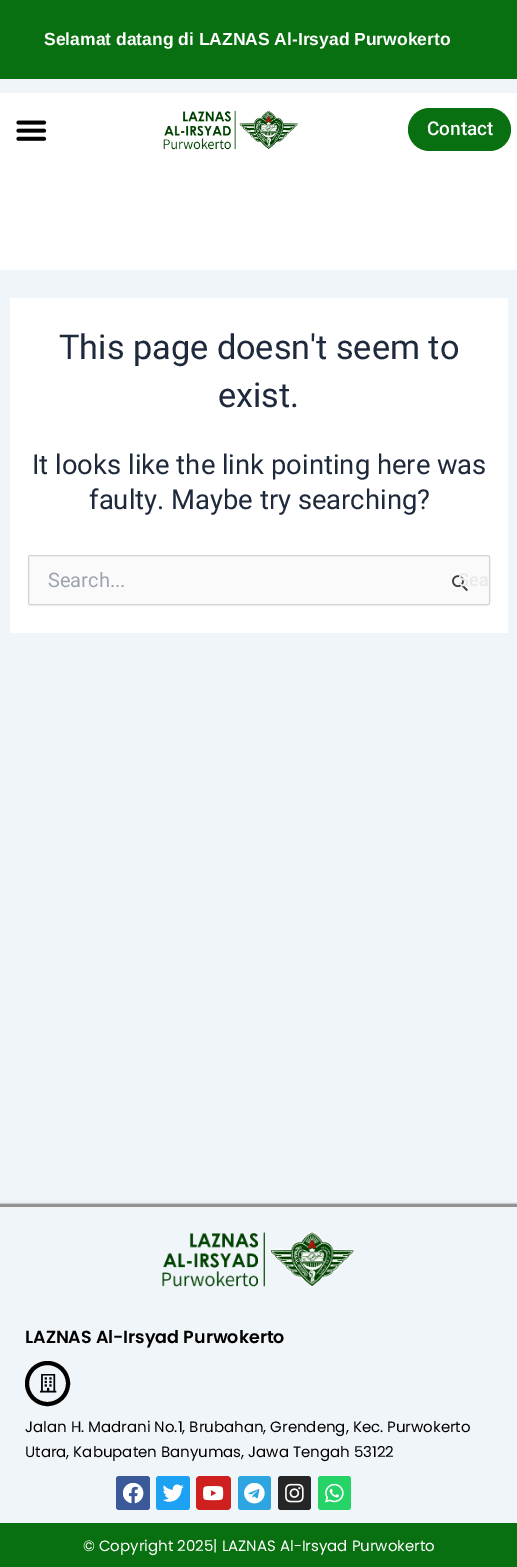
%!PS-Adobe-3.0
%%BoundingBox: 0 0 517 1567
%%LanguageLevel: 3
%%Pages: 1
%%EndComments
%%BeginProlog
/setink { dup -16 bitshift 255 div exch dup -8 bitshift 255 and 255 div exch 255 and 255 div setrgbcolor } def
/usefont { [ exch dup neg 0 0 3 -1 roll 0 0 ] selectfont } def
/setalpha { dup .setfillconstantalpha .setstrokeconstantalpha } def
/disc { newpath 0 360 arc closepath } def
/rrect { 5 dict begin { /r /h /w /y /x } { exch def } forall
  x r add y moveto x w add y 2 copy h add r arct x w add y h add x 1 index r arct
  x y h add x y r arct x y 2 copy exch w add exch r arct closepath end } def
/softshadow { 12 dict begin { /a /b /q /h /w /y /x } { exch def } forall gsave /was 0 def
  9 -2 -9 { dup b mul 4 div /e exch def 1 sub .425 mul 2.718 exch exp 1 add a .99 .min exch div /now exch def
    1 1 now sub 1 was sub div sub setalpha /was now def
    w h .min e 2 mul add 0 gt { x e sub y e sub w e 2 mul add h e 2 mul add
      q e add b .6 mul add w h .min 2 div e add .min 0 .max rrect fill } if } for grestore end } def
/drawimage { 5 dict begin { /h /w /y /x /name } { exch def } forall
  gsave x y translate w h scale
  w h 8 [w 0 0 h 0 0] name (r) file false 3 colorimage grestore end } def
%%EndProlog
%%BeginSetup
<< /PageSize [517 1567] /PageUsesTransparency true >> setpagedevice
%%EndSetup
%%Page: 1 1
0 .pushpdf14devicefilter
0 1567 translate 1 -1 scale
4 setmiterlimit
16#F0F5FA setink
0 0 517 1567 rectfill
16#097011 setink
0 0 517 79 rectfill
/LiberationSans-Bold 17.5 usefont
16#FFFFFF setink
44 45 moveto (Selamat datang di LAZNAS Al-Irsyad Purwokerto) show
0 93 517 177 rectfill
(img1.raw) 16 120 31 21 drawimage
(img2.raw) 163 110 135 40 drawimage
16#097011 setink
408 108 103 43 21.5 rrect fill
/Roboto-Medium 19 usefont
16#FFFFFF setink
427 135 moveto (Contact) show
10 298 498 335 rectfill
/Roboto-Regular 34.25 usefont
16#1E293B setink
59 359 moveto (This page doesn't seem to) show
218 407 moveto (exist.) show
/Roboto-Regular 27.4 usefont
32 474 moveto (It looks like the link pointing here was) show
89 509 moveto (faulty. Maybe try searching?) show
16#000000 setink
28 556 462 50 2.5 1 0.05 softshadow
16#FAFAFA setink
28.5 555.5 461 49 2 rrect gsave fill grestore
16#D1D5DB setink
stroke
/Roboto-Regular 20 usefont
16#9CA3AF setink
48 587 moveto (Search...) show
(img3.raw) 452 575 16 17 drawimage
/Roboto-Medium 18 usefont
16#E9E9E9 setink
458 586 moveto (Sea) show
gsave
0 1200 moveto 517 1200 lineto 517 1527 lineto 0 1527 lineto closepath 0 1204 moveto 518 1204 lineto 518 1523 lineto 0 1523 lineto closepath eoclip newpath
16#000000 setink
0 1204 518 319 0 1 0.5 softshadow
grestore
16#929292 setink
0 1204 517 3 rectfill
(img4.raw) 162 1231 193 57 drawimage
/Poppins-SemiBold 17.5 usefont
16#000000 setink
25 1343 moveto (LAZNAS Al-Irsyad Purwokerto) show
4 setlinewidth
47.5 1383.5 20.5 disc stroke
(img5.raw) 39 1374 18 19 drawimage
/Poppins-Regular 15 usefont
25 1432 moveto (Jalan H. Madrani No.1, Brubahan, Grendeng, Kec. Purwokerto) show
25 1457 moveto (Utara, Kabupaten Banyumas, Jawa Tengah 53122) show
16#3B5998 setink
116 1476 34 34 3 rrect fill
(img6.raw) 123 1483 21 21 drawimage
16#1DA1F2 setink
156 1476 34 34 3 rrect fill
(img7.raw) 163 1484 21 18 drawimage
16#CD201F setink
196 1476 35 34 4 rrect fill
(img8.raw) 203 1486 21 15 drawimage
16#2CA5E0 setink
238 1476 33 34 3 rrect fill
(img9.raw) 244 1483 21 21 drawimage
16#262626 setink
278 1476 33 34 3 rrect fill
(img10.raw) 285 1483 19 20 drawimage
16#25D366 setink
318 1476 33 34 3 rrect fill
(img11.raw) 325 1483 19 20 drawimage
16#097011 setink
0 1523 517 44 rectfill
16#FFFFFF setink
83 1551 moveto (© Copyright 2025| LAZNAS Al-Irsyad Purwokerto) show
.poppdf14devicefilter showpage
%%EOF
